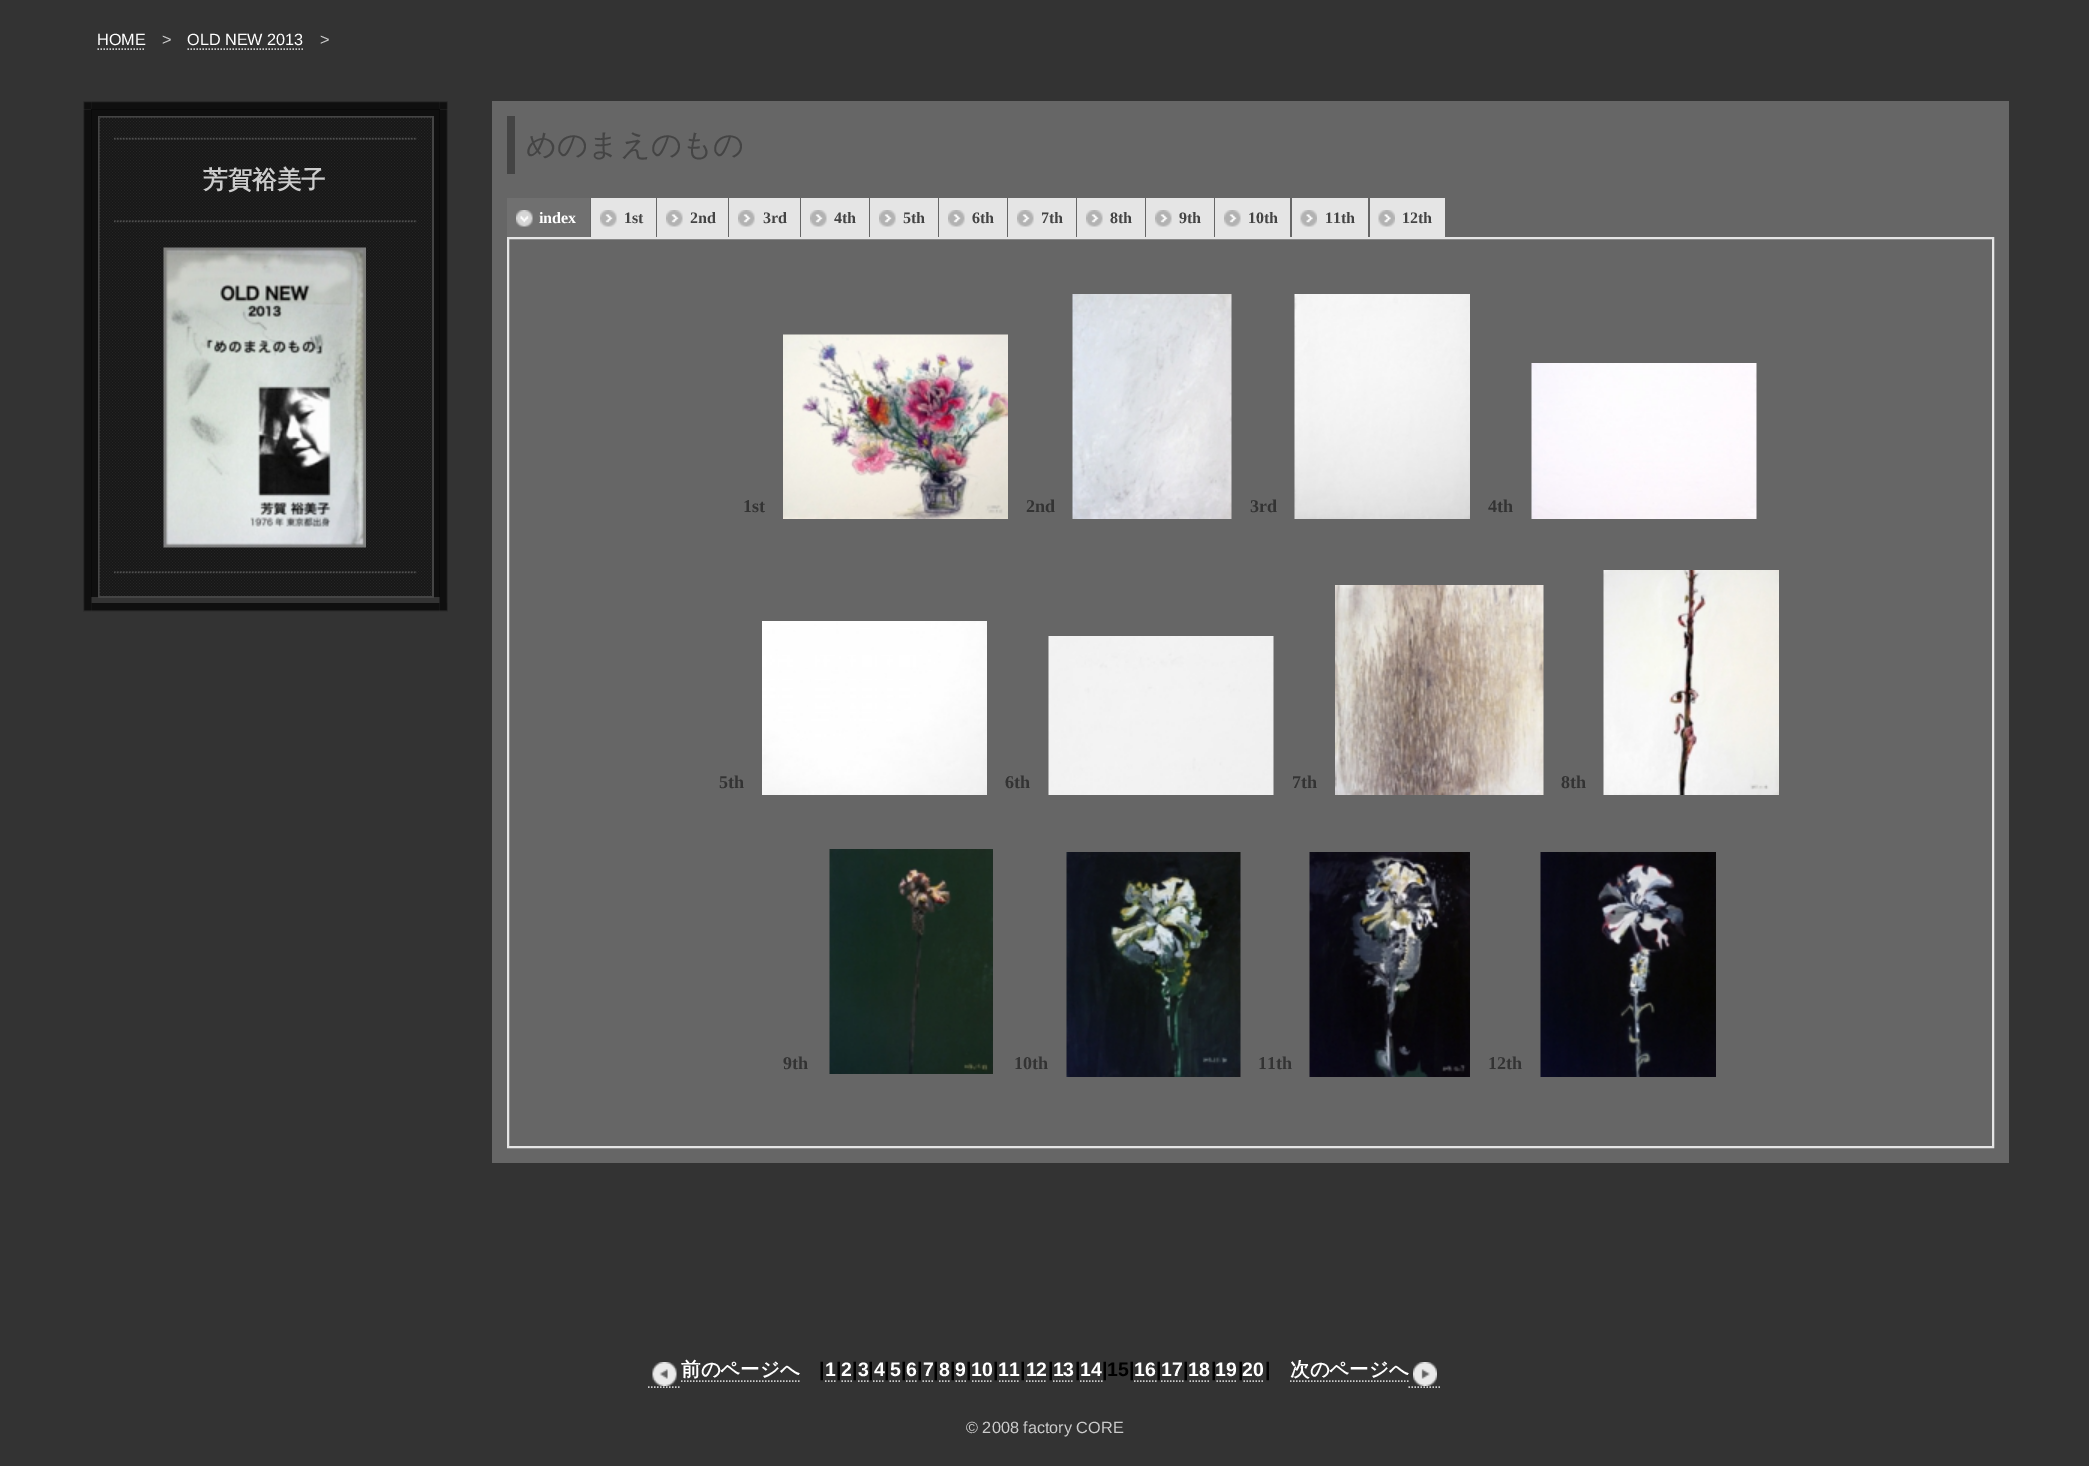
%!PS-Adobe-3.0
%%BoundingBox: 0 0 2089 1466
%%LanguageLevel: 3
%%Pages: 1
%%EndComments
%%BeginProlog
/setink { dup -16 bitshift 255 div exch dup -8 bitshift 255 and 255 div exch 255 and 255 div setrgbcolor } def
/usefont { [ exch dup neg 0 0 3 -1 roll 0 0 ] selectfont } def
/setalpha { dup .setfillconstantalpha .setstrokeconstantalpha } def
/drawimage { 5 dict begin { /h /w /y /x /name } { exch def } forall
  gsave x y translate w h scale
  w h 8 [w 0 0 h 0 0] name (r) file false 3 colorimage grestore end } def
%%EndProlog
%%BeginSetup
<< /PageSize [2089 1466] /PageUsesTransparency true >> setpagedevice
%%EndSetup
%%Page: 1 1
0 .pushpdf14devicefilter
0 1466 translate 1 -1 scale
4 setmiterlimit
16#333333 setink
0 0 2089 1466 rectfill
/LiberationSans-Regular 16.25 usefont
16#FFFFFF setink
97 45 moveto (HOME) show
16#CCCCCC setink
1.5 setlinewidth
[1.5 1.5] 0 setdash
97.5 49 moveto 145.5 49 lineto stroke
162 45 moveto (>) show
16#FFFFFF setink
187 45 moveto (OLD NEW 2013) show
16#CCCCCC setink
187.5 49 moveto 303 49 lineto stroke
320 45 moveto (>) show
(img2.raw) 91 101 349 9 drawimage
(img1.raw) 83 101 9 9 drawimage
(img3.raw) 439 101 9 9 drawimage
0.7 setalpha
16#000000 setink
91 109 349 488 rectfill
1 setalpha
(img4.raw) 83 109 9 494 drawimage
[
    [98 116 336 2 16#444444]
    [432 116 2 481 16#444444]
    [98 596 336 2 16#444444]
    [98 116 2 481 16#444444]
] { aload pop setink rectfill } forall
(img5.raw) 99 117 333 479 drawimage
(img6.raw) 114 137 303 3 drawimage
/WenQuanYiZenHei-Bold 24.5 usefont
16#CCCCCC setink
203 188 moveto (芳賀裕美子) show
(img7.raw) 114 220 303 3 drawimage
(img8.raw) 163 247 203 301 drawimage
(img9.raw) 114 571 303 3 drawimage
(img10.raw) 439 109 9 494 drawimage
(img12.raw) 91 603 349 9 drawimage
(img11.raw) 83 603 9 9 drawimage
(img13.raw) 439 603 9 9 drawimage
16#666666 setink
492 101 1517 1062 rectfill
16#444444 setink
507 116 8 58 rectfill
/WenQuanYiZenHei-Medium 30.5 usefont
526 155 moveto (めのまえのもの) show
16#707070 setink
507 198 83 39 rectfill
(img14.raw) 516 210 17 17 drawimage
/LiberationSerif-Bold 16 usefont
16#FFFFFF setink
539 223 moveto (index) show
16#E5E5E5 setink
591 198 65 39 rectfill
(img15.raw) 600 210 17 17 drawimage
16#444444 setink
624 223 moveto (1st) show
16#E5E5E5 setink
657 198 71 39 rectfill
(img16.raw) 666 210 17 17 drawimage
16#444444 setink
690 223 moveto (2nd) show
16#E5E5E5 setink
729 198 71 39 rectfill
(img15.raw) 738 210 17 17 drawimage
16#444444 setink
763 223 moveto (3rd) show
16#E5E5E5 setink
801 198 68 39 rectfill
(img16.raw) 810 210 17 17 drawimage
16#444444 setink
834 223 moveto (4th) show
16#E5E5E5 setink
870 198 68 39 rectfill
(img16.raw) 879 210 17 17 drawimage
16#444444 setink
903 223 moveto (5th) show
16#E5E5E5 setink
939 198 68 39 rectfill
(img16.raw) 948 210 17 17 drawimage
16#444444 setink
972 223 moveto (6th) show
16#E5E5E5 setink
1008 198 68 39 rectfill
(img16.raw) 1017 210 17 17 drawimage
16#444444 setink
1041 223 moveto (7th) show
16#E5E5E5 setink
1077 198 68 39 rectfill
(img15.raw) 1086 210 17 17 drawimage
16#444444 setink
1110 223 moveto (8th) show
16#E5E5E5 setink
1146 198 68 39 rectfill
(img15.raw) 1155 210 17 17 drawimage
16#444444 setink
1179 223 moveto (9th) show
16#E5E5E5 setink
1215 198 75 39 rectfill
(img15.raw) 1224 210 17 17 drawimage
16#444444 setink
1248 223 moveto (10th) show
16#E5E5E5 setink
1292 198 76 39 rectfill
(img17.raw) 1300 210 17 17 drawimage
16#444444 setink
1325 223 moveto (11th) show
16#E5E5E5 setink
1370 198 75 39 rectfill
(img17.raw) 1378 210 17 17 drawimage
16#444444 setink
1402 223 moveto (12th) show
16#E5E5E5 setink
2 setlinewidth
[] 0 setdash
508 238 1485 909 rectstroke
/LiberationSerif-Bold 18 usefont
16#333333 setink
743 512 moveto (1st) show
(img18.raw) 783 334 225 185 drawimage
1026 512 moveto (2nd) show
(img19.raw) 1072 294 160 225 drawimage
1250 512 moveto (3rd) show
(img20.raw) 1294 294 176 225 drawimage
1488 512 moveto (4th) show
(img21.raw) 1531 363 226 156 drawimage
719 788 moveto (5th) show
(img22.raw) 762 621 225 174 drawimage
1005 788 moveto (6th) show
(img23.raw) 1048 636 226 159 drawimage
1292 788 moveto (7th) show
(img24.raw) 1335 585 209 210 drawimage
1561 788 moveto (8th) show
(img25.raw) 1603 570 176 225 drawimage
783 1069 moveto (9th) show
(img26.raw) 829 849 164 225 drawimage
1014 1069 moveto (10th) show
(img27.raw) 1066 852 175 225 drawimage
1258 1069 moveto (11th) show
(img28.raw) 1309 852 161 225 drawimage
1488 1069 moveto (12th) show
(img29.raw) 1540 852 176 225 drawimage
(img30.raw) 652 1362 25 24 drawimage
/WenQuanYiZenHei-Bold 19.5 usefont
16#FFFFFF setink
681 1376 moveto (前のページへ) show
16#CCCCCC setink
1.5 setlinewidth
[1.5 1.5] 0 setdash
648 1387 moveto 681 1387 lineto stroke
681 1381 moveto 799.5 1381 lineto stroke
/LiberationSans-Bold 19.5 usefont
16#000000 setink
819 1376 moveto (|) show
16#CCCCCC setink
[] 0 setdash
825 1381 moveto 826.5 1381 lineto 828 1381 moveto 829.5 1381 lineto 831 1381 moveto 832.5 1381 lineto 834 1381 moveto 835.5 1381 lineto stroke
16#FFFFFF setink
825 1376 moveto (1 2 3 4 5 6 7 8 9 10 11 12 13 14) show
16#000000 setink
836 1376 moveto (|) show
16#CCCCCC setink
841.5 1381 moveto 843 1381 lineto 844.5 1381 moveto 846 1381 lineto 847.5 1381 moveto 849 1381 lineto 850.5 1381 moveto 852 1381 lineto stroke
16#000000 setink
852 1376 moveto (|) show
868 1376 moveto (|) show
16#CCCCCC setink
858 1381 moveto 859.5 1381 lineto 861 1381 moveto 862.5 1381 lineto 864 1381 moveto 865.5 1381 lineto 867 1381 moveto 868.5 1381 lineto stroke
[1.5 1.5] 0 setdash
873 1381 moveto 885 1381 lineto stroke
16#000000 setink
884 1376 moveto (|) show
16#CCCCCC setink
889.5 1381 moveto 901.5 1381 lineto stroke
16#000000 setink
901 1376 moveto (|) show
16#CCCCCC setink
[] 0 setdash
906 1381 moveto 907.5 1381 lineto 909 1381 moveto 910.5 1381 lineto 912 1381 moveto 913.5 1381 lineto 915 1381 moveto 916.5 1381 lineto stroke
16#000000 setink
917 1376 moveto (|) show
16#CCCCCC setink
922.5 1381 moveto 924 1381 lineto 925.5 1381 moveto 927 1381 lineto 928.5 1381 moveto 930 1381 lineto 931.5 1381 moveto 933 1381 lineto stroke
16#000000 setink
933 1376 moveto (|) show
16#CCCCCC setink
939 1381 moveto 940.5 1381 lineto 942 1381 moveto 943.5 1381 lineto 945 1381 moveto 946.5 1381 lineto 948 1381 moveto 949.5 1381 lineto stroke
16#000000 setink
950 1376 moveto (|) show
16#CCCCCC setink
955.5 1381 moveto 957 1381 lineto 958.5 1381 moveto 960 1381 lineto 961.5 1381 moveto 963 1381 lineto 964.5 1381 moveto 966 1381 lineto stroke
16#000000 setink
966 1376 moveto (|) show
16#CCCCCC setink
[1.5 1.5] 0 setdash
972 1381 moveto 993 1381 lineto stroke
16#000000 setink
993 1376 moveto (|) show
16#CCCCCC setink
999 1381 moveto 1020 1381 lineto stroke
16#000000 setink
1020 1376 moveto (|) show
16#CCCCCC setink
1026 1381 moveto 1047 1381 lineto stroke
16#000000 setink
1048 1376 moveto (|) show
16#CCCCCC setink
1053 1381 moveto 1074 1381 lineto stroke
16#000000 setink
1075 1376 moveto (|) show
1102 1376 moveto (|15|) show
16#CCCCCC setink
1080 1381 moveto 1102.5 1381 lineto stroke
16#FFFFFF setink
1134 1376 moveto (16 17 18 19 20) show
16#000000 setink
1156 1376 moveto (|) show
16#CCCCCC setink
1134 1381 moveto 1156.5 1381 lineto stroke
1161 1381 moveto 1183.5 1381 lineto stroke
16#000000 setink
1183 1376 moveto (|) show
16#CCCCCC setink
1189.5 1381 moveto 1210.5 1381 lineto stroke
16#000000 setink
1211 1376 moveto (|) show
16#CCCCCC setink
1216.5 1381 moveto 1237.5 1381 lineto stroke
16#000000 setink
1238 1376 moveto (|) show
16#CCCCCC setink
1243.5 1381 moveto 1264.5 1381 lineto stroke
16#000000 setink
1265 1376 moveto (|) show
/WenQuanYiZenHei-Bold 19.5 usefont
16#FFFFFF setink
1290 1376 moveto (次のページへ) show
16#CCCCCC setink
1290 1381 moveto 1408.5 1381 lineto stroke
1408.5 1387 moveto 1441.5 1387 lineto stroke
(img31.raw) 1413 1362 24 24 drawimage
/LiberationSans-Regular 16.25 usefont
966 1433 moveto (© 2008 factory CORE) show
.poppdf14devicefilter showpage
%%EOF
